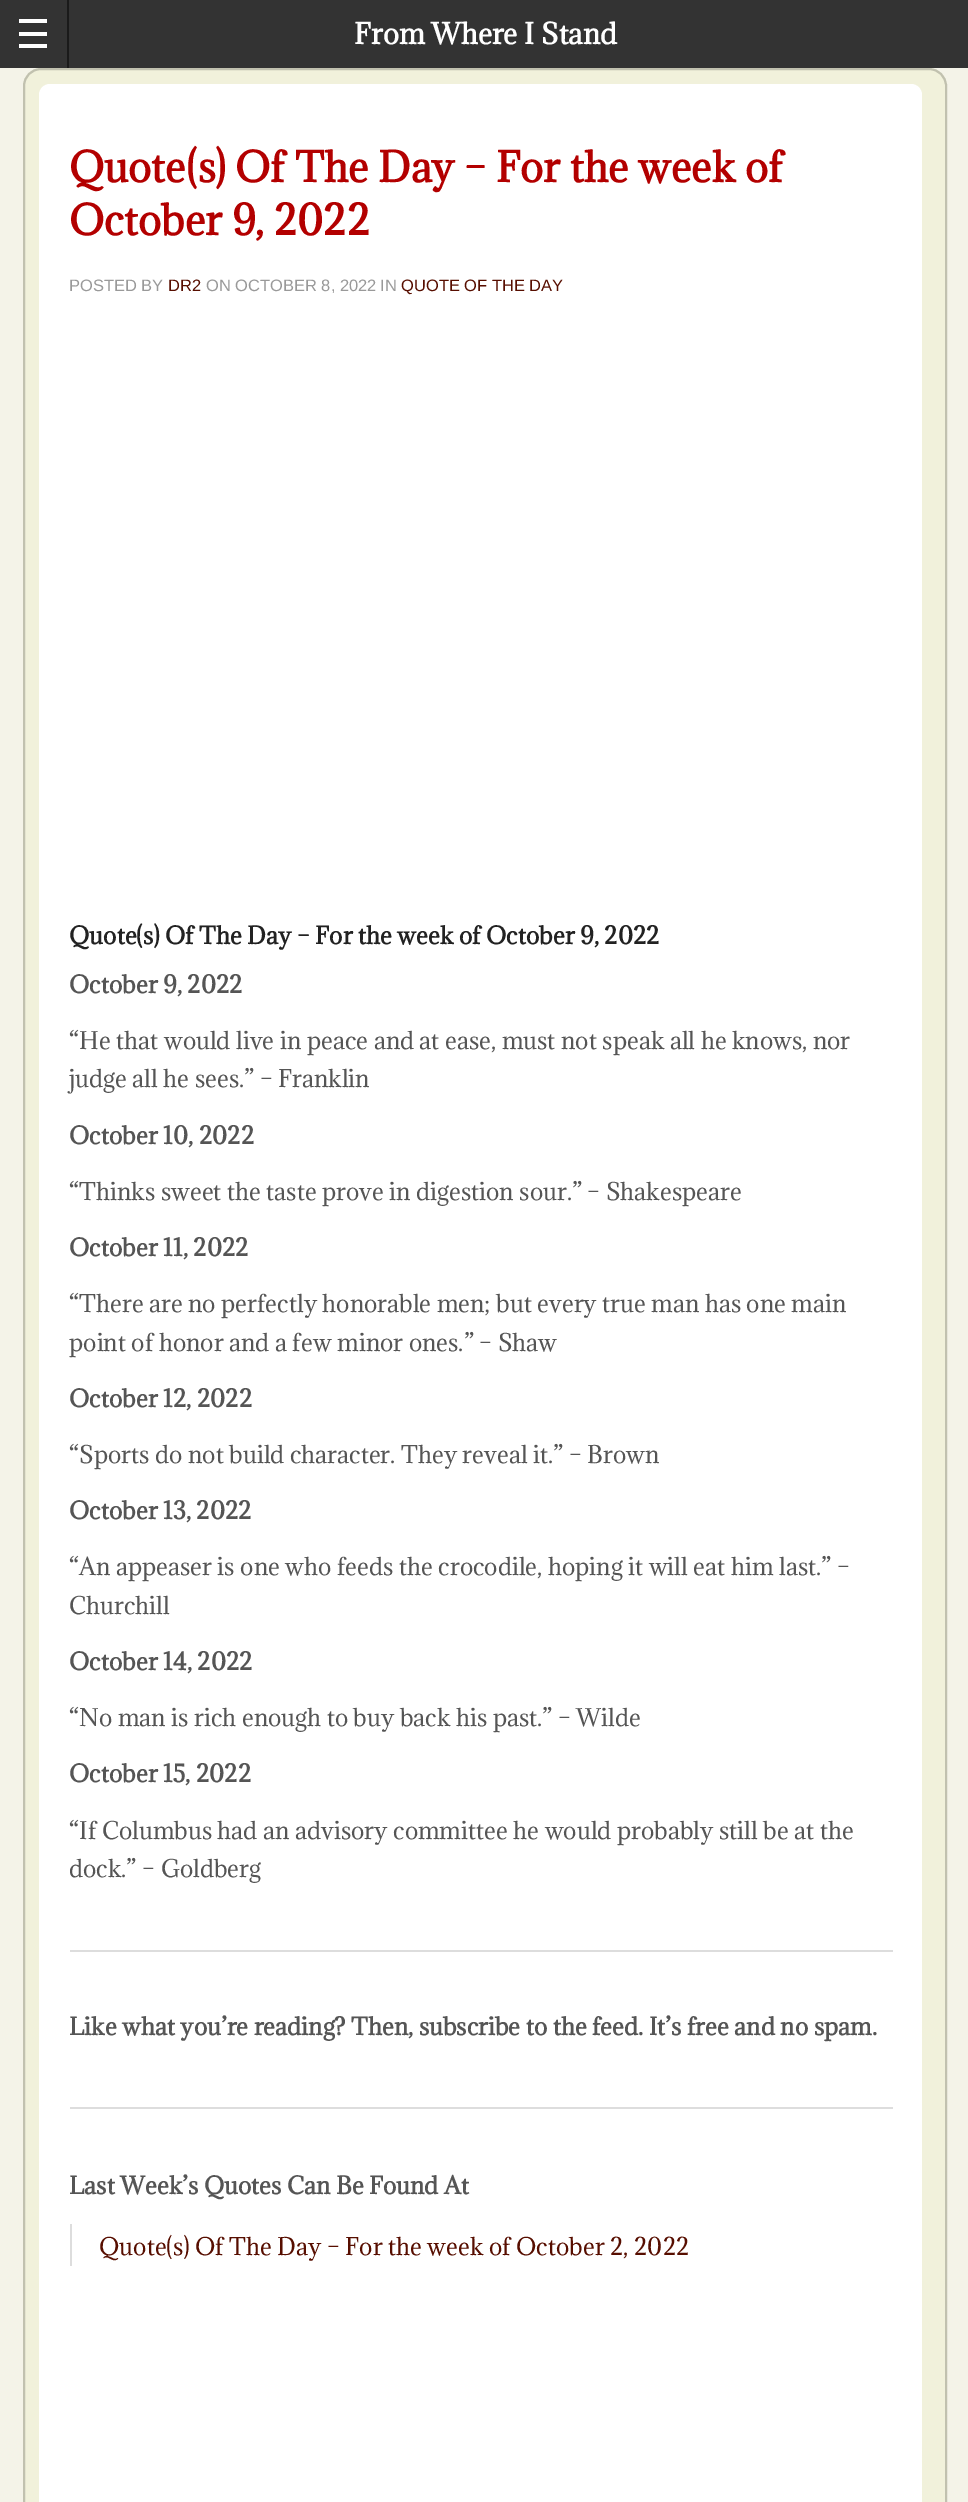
%!PS-Adobe-3.0
%%BoundingBox: 0 0 968 2502
%%LanguageLevel: 3
%%Pages: 1
%%EndComments
%%BeginProlog
/setink { dup -16 bitshift 255 div exch dup -8 bitshift 255 and 255 div exch 255 and 255 div setrgbcolor } def
/usefont { [ exch dup neg 0 0 3 -1 roll 0 0 ] selectfont } def
/setalpha { dup .setfillconstantalpha .setstrokeconstantalpha } def
/rrect { 5 dict begin { /r /h /w /y /x } { exch def } forall
  x r add y moveto x w add y 2 copy h add r arct x w add y h add x 1 index r arct
  x y h add x y r arct x y 2 copy exch w add exch r arct closepath end } def
%%EndProlog
%%BeginSetup
<< /PageSize [968 2502] /PageUsesTransparency true >> setpagedevice
%%EndSetup
%%Page: 1 1
0 .pushpdf14devicefilter
0 2502 translate 1 -1 scale
4 setmiterlimit
16#F4F3E8 setink
0 0 968 2502 rectfill
[
    [0 0 968 68 16#333333]
    [67 0 2 68 16#1A1A1A]
    [19 44 28 4 16#FFFFFF]
    [19 32 28 4 16#FFFFFF]
    [19 19 28 4 16#FFFFFF]
] { aload pop setink rectfill } forall
/Adamina-Bold 27 usefont
354 44 moveto (From Where I Stand) show
16#F1F1DB setink
23 68 924 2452 18 rrect fill
0.2 setalpha
16#000000 setink
2 setlinewidth
24 69 922 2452 17 rrect stroke
1 setalpha
16#FFFFFF setink
39 84 883 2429 11 rrect fill
/Adamina-Bold 39 usefont
16#B30000 setink
69 182 moveto (Quote\(s\) Of The Day – For the week of) show
69 235 moveto (October 9, 2022) show
/LiberationSans-Regular 16.5 usefont
16#999999 setink
69 291 moveto (POSTED BY) show
16#570E00 setink
168 291 moveto (DR2) show
16#999999 setink
206 291 moveto (ON OCTOBER 8, 2022) show
380 291 moveto (IN) show
16#570E00 setink
401 291 moveto (QUOTE OF THE DAY) show
/Adamina-Bold 22.5 usefont
16#222222 setink
69 944 moveto (Quote\(s\) Of The Day – For the week of October 9, 2022) show
16#555555 setink
69 993 moveto (October 9, 2022) show
/Adamina-Regular 22.5 usefont
69 1049 moveto (“He that would live in peace and at ease, must not speak all he knows, nor) show
69 1087 moveto (judge all he sees.” – Franklin) show
/Adamina-Bold 22.5 usefont
69 1144 moveto (October 10, 2022) show
/Adamina-Regular 22.5 usefont
69 1200 moveto (“Thinks sweet the taste prove in digestion sour.” – Shakespeare) show
/Adamina-Bold 22.5 usefont
69 1256 moveto (October 11, 2022) show
/Adamina-Regular 22.5 usefont
69 1312 moveto (“There are no perfectly honorable men; but every true man has one main) show
69 1351 moveto (point of honor and a few minor ones.” – Shaw) show
/Adamina-Bold 22.5 usefont
69 1407 moveto (October 12, 2022) show
/Adamina-Regular 22.5 usefont
69 1463 moveto (“Sports do not build character.) show
401 1463 moveto (They reveal it.” – Brown) show
/Adamina-Bold 22.5 usefont
69 1519 moveto (October 13, 2022) show
/Adamina-Regular 22.5 usefont
69 1575 moveto (“An appeaser is one who feeds the crocodile, hoping it will eat him last.” –) show
69 1614 moveto (Churchill) show
/Adamina-Bold 22.5 usefont
69 1670 moveto (October 14, 2022) show
/Adamina-Regular 22.5 usefont
69 1726 moveto (“No man is rich enough to buy back his past.” – Wilde) show
/Adamina-Bold 22.5 usefont
69 1782 moveto (October 15, 2022) show
/Adamina-Regular 22.5 usefont
69 1839 moveto (“If Columbus had an advisory committee he would probably still be at the) show
69 1877 moveto (dock.” – Goldberg) show
16#DDDDDD setink
70 1950 823 2 rectfill
/Adamina-Bold 22.5 usefont
16#555555 setink
[
    [(Like what you’re reading?) 69 2035]
    [(Then, subscribe to the feed.) 351 2035]
    [(It’s free and no spam.) 649 2035]
] { aload pop moveto show } forall
16#DDDDDD setink
70 2107 823 2 rectfill
16#555555 setink
69 2194 moveto (Last Week’s Quotes Can Be Found At) show
16#DDDDDD setink
70 2224 2 42 rectfill
/Adamina-Regular 22.5 usefont
16#570E00 setink
99 2255 moveto (Quote\(s\) Of The Day – For the week of October 2, 2022) show
.poppdf14devicefilter showpage
%%EOF
